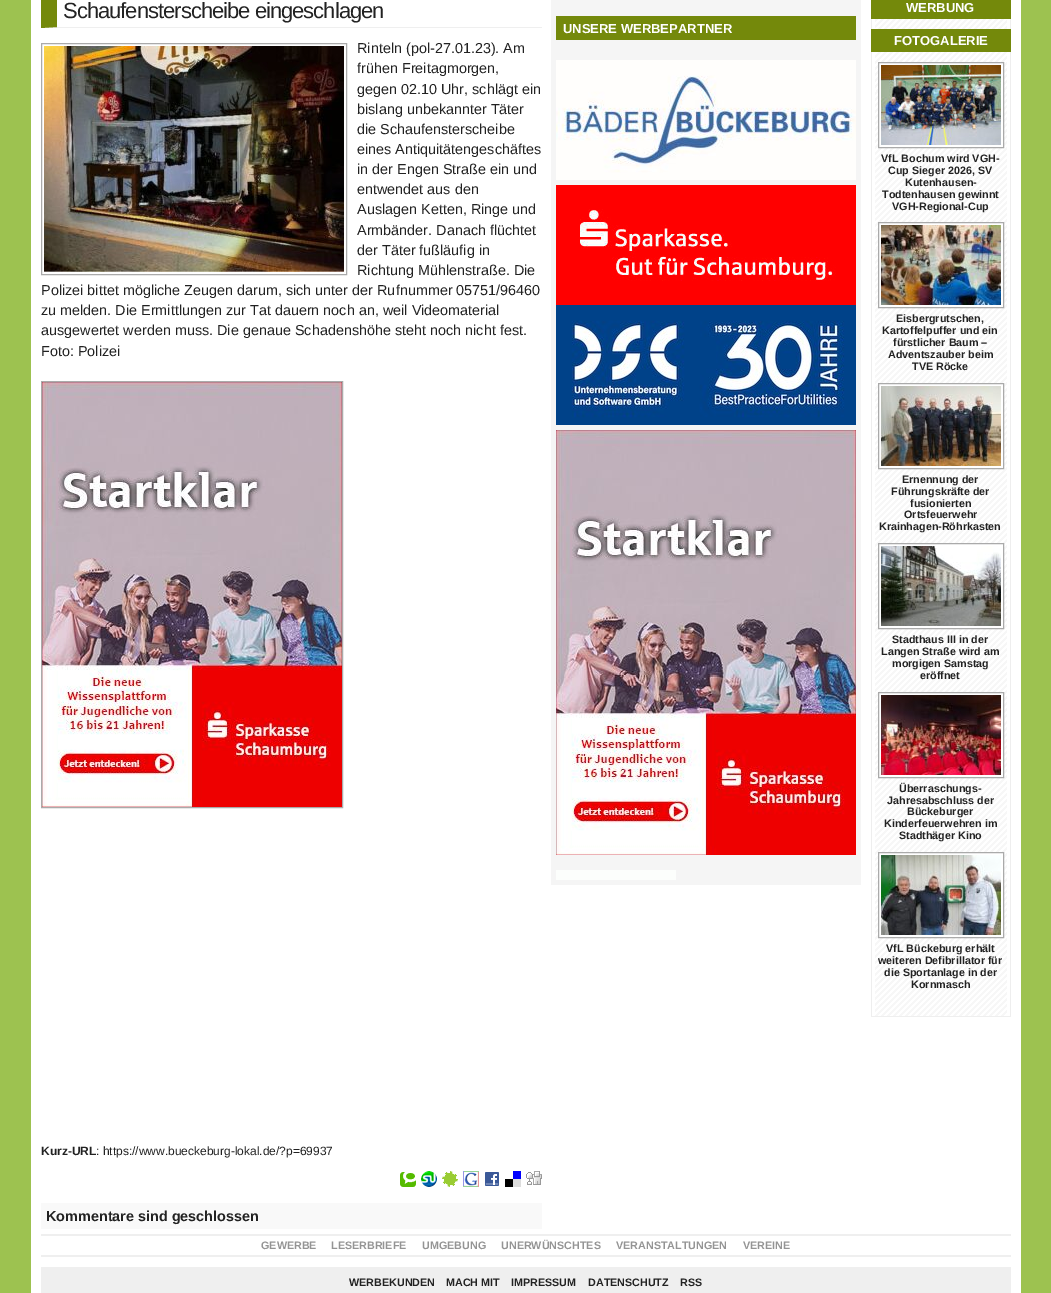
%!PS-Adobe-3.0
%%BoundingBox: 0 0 1051 1293
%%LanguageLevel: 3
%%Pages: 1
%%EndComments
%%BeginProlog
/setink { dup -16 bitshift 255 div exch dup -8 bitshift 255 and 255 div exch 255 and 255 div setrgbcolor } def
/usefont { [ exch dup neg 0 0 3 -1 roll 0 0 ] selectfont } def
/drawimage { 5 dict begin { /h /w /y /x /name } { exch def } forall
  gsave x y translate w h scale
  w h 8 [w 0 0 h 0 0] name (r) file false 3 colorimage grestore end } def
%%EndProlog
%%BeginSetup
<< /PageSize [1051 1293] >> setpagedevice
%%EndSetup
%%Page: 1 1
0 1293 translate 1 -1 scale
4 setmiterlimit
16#9DC250 setink
0 0 1051 1293 rectfill
16#FFFFFF setink
31 0 990 1293 rectfill
16#EFEFEF setink
542 28 moveto 41 28 lineto 57 27 lineto 542 27 lineto closepath fill
16#74890B setink
41 28 moveto 41 -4 lineto 57 -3 lineto 57 27 lineto closepath fill
/LiberationSans-Regular 22 usefont
16#222222 setink
63 18 moveto -1 0 (Schaufensterscheibe eingeschlagen) ashow
16#AAAAAA setink
41.5 43.5 305 231 rectstroke
(img1.raw) 44 46 300 226 drawimage
/LiberationSans-Regular 14.4 usefont
16#222222 setink
[
    [(Rinteln \(pol-27.01.23\). Am) 357 53]
    [(frühen Freitagmorgen,) 357 73]
    [(gegen 02.10 Uhr, schlägt ein) 357 94]
    [(bislang unbekannter Täter) 357 114]
    [(die Schaufensterscheibe) 357 134]
    [(eines Antiquitätengeschäftes) 357 154]
    [(in der Engen Straße ein und) 357 174]
    [(entwendet aus den) 357 194]
    [(Auslagen Ketten, Ringe und) 357 214]
    [(Armbänder. Danach flüchtet) 357 235]
    [(der Täter fußläufig in) 357 255]
    [(Richtung Mühlenstraße. Die) 357 275]
    [(Polizei bittet mögliche Zeugen darum, sich unter der Rufnummer 05751/96460) 41 295]
    [(zu melden. Die Ermittlungen zur Tat dauern noch an, weil Videomaterial) 41 315]
    [(ausgewertet werden muss. Die genaue Schadenshöhe steht noch nicht fest.) 41 335]
    [(Foto: Polizei) 41 356]
] { aload pop moveto show } forall
16#AAAAAA setink
41.5 381.5 301 426 rectstroke
(img2.raw) 42 382 300 425 drawimage
/LiberationSans-Bold 12 usefont
16#222222 setink
41 1155 moveto (Kurz-URL) show
/LiberationSans-Regular 12 usefont
96 1155 moveto (: https://www.bueckeburg-lokal.de/?p=69937) show
(img3.raw) 400 1172 16 15 drawimage
(img4.raw) 421 1171 16 16 drawimage
(img5.raw) 442 1171 16 16 drawimage
(img6.raw) 463 1171 16 16 drawimage
(img7.raw) 485 1172 14 14 drawimage
(img8.raw) 505 1171 16 16 drawimage
(img9.raw) 526 1171 16 14 drawimage
16#F9F9F9 setink
41 1203 501 26 rectfill
/LiberationSans-Bold 14.4 usefont
16#222222 setink
46 1221 moveto (Kommentare sind geschlossen) show
16#F5F5F5 setink
551 0 310 885 rectfill
16#74890B setink
556 16 300 24 rectfill
/LiberationSans-Bold 13 usefont
16#FFFFFF setink
563 33 moveto (UNSERE WERBEPARTNER) show
(img10.raw) 556 60 300 120 drawimage
(img11.raw) 556 185 300 120 drawimage
(img12.raw) 556 305 300 120 drawimage
(img2.raw) 556 430 300 425 drawimage
16#FCFEFC setink
556 870 120 10 rectfill
(img13.raw) 871 19 140 997 drawimage
16#EFEFEF setink
871 1016 140 1 rectfill
16#74890B setink
871 0 140 19 rectfill
16#FFFFFF setink
906 12 moveto (WERBUNG) show
16#74890B setink
871 29 140 23 rectfill
16#FFFFFF setink
894 45 moveto (FOTOGALERIE) show
878.5 62.5 moveto 1003.5 62.5 lineto 1003.5 147.5 lineto 878.5 147.5 lineto closepath gsave fill grestore
16#AAAAAA setink
stroke
(img14.raw) 881 65 120 80 drawimage
/LiberationSans-Bold 10.75 usefont
16#222222 setink
[
    [(VfL Bochum wird VGH-) 881 162]
    [(Cup Sieger 2026, SV) 888 174]
    [(Kutenhausen-) 905 186]
    [(Todtenhausen gewinnt) 882 198]
    [(VGH-Regional-Cup) 892 210]
] { aload pop moveto show } forall
16#FFFFFF setink
878.5 222.5 moveto 1003.5 222.5 lineto 1003.5 307.5 lineto 878.5 307.5 lineto closepath gsave fill grestore
16#AAAAAA setink
stroke
(img15.raw) 881 225 120 80 drawimage
16#222222 setink
[
    [(Eisbergrutschen,) 896 322]
    [(Kartoffelpuffer und ein) 882 334]
    [(fürstlicher Baum –) 893 346]
    [(Adventszauber beim) 888 358]
    [(TVE Röcke) 912 370]
] { aload pop moveto show } forall
16#FFFFFF setink
878.5 383.5 moveto 1003.5 383.5 lineto 1003.5 468.5 lineto 878.5 468.5 lineto closepath gsave fill grestore
16#AAAAAA setink
stroke
(img16.raw) 881 386 120 80 drawimage
16#222222 setink
[
    [(Ernennung der) 902 483]
    [(Führungskräfte der) 891 495]
    [(fusionierten) 910 507]
    [(Ortsfeuerwehr) 904 518]
    [(Krainhagen-Röhrkasten) 879 530]
] { aload pop moveto show } forall
16#FFFFFF setink
878.5 543.5 moveto 1003.5 543.5 lineto 1003.5 628.5 lineto 878.5 628.5 lineto closepath gsave fill grestore
16#AAAAAA setink
stroke
(img17.raw) 881 546 120 80 drawimage
16#222222 setink
[
    [(Stadthaus III in der) 892 643]
    [(Langen Straße wird am) 881 655]
    [(morgigen Samstag) 892 667]
    [(eröffnet) 920 679]
] { aload pop moveto show } forall
16#FFFFFF setink
878.5 692.5 moveto 1003.5 692.5 lineto 1003.5 777.5 lineto 878.5 777.5 lineto closepath gsave fill grestore
16#AAAAAA setink
stroke
(img18.raw) 881 695 120 80 drawimage
16#222222 setink
[
    [(Überraschungs-) 899 792]
    [(Jahresabschluss der) 887 804]
    [(Bückeburger) 907 815]
    [(Kinderfeuerwehren im) 884 827]
    [(Stadthäger Kino) 899 839]
] { aload pop moveto show } forall
16#FFFFFF setink
878.5 852.5 moveto 1003.5 852.5 lineto 1003.5 937.5 lineto 878.5 937.5 lineto closepath gsave fill grestore
16#AAAAAA setink
stroke
(img19.raw) 881 855 120 80 drawimage
16#222222 setink
[
    [(VfL Bückeburg erhält) 886 952]
    [(weiteren Defibrillator für) 878 964]
    [(die Sportanlage in der) 884 976]
    [(Kornmasch) 911 988]
] { aload pop moveto show } forall
16#EFEFEF setink
41 1234 970 2 rectfill
41 1255 970 2 rectfill
16#949494 setink
[
    [(GEWERBE) 261 1249]
    [(LESERBRIEFE) 331 1249]
    [(UMGEBUNG) 422 1249]
    [(UNERWÜNSCHTES) 501 1249]
    [(VERANSTALTUNGEN) 616 1249]
    [(VEREINE) 743 1249]
] { aload pop moveto show } forall
16#EFEFEF setink
41 1267 970 26 rectfill
16#222222 setink
[
    [(WERBEKUNDEN) 349 1286]
    [(MACH MIT) 446 1286]
    [(IMPRESSUM) 511 1286]
    [(DATENSCHUTZ) 588 1286]
    [(RSS) 680 1286]
] { aload pop moveto show } forall
showpage
%%EOF
